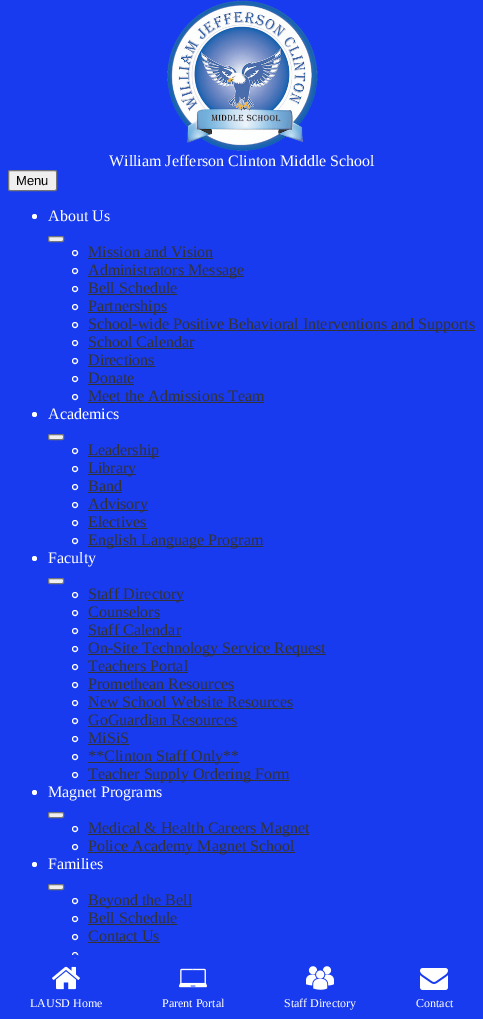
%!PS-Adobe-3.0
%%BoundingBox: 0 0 483 1019
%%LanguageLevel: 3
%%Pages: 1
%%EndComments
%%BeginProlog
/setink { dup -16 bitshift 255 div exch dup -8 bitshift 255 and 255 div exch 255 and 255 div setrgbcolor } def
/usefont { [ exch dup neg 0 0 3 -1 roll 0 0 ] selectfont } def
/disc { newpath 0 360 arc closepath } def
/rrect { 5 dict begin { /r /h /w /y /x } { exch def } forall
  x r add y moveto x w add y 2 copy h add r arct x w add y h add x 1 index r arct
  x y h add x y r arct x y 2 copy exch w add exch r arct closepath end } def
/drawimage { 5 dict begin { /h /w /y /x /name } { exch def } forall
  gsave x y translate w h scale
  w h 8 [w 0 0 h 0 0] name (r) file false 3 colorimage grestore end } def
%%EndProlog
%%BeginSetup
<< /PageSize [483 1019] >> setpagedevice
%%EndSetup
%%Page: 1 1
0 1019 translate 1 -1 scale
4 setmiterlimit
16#183BF0 setink
0 0 483 1019 rectfill
(img1.raw) 167 0 151 151 drawimage
/LiberationSerif-Regular 16 usefont
16#FFFFFF setink
109 166 moveto (William Jefferson Clinton Middle School) show
16#EFEFEF setink
8.5 170.5 48 20 1.5 rrect gsave fill grestore
16#767676 setink
stroke
/LiberationSans-Regular 13 usefont
16#000000 setink
16 185 moveto (Menu) show
16#FFFFFF setink
34.5 216.5 2.5 disc fill
/LiberationSerif-Regular 16 usefont
48 221 moveto (About Us) show
16#EFEFEF setink
48.5 236.5 15 5 1.5 rrect gsave fill grestore
16#767676 setink
stroke
16#FFFFFF setink
75 253 2.5 disc stroke
16#333333 setink
88 257 moveto (Mission and Vision) show
88 258 125 1 rectfill
16#FFFFFF setink
75 271 2.5 disc stroke
16#333333 setink
88 276 156 1 rectfill
88 275 moveto (Administrators Message) show
16#FFFFFF setink
75 289 2.5 disc stroke
16#333333 setink
88 293 moveto (Bell Schedule) show
88 294 89 1 rectfill
16#FFFFFF setink
75 307 2.5 disc stroke
16#333333 setink
88 312 79 1 rectfill
88 311 moveto (Partnerships) show
16#FFFFFF setink
75 325 2.5 disc stroke
16#333333 setink
88 330 387 1 rectfill
88 329 moveto (School-wide Positive Behavioral Interventions and Supports) show
16#FFFFFF setink
75 343 2.5 disc stroke
16#333333 setink
88 347 moveto (School Calendar) show
88 348 106 1 rectfill
16#FFFFFF setink
75 361 2.5 disc stroke
16#333333 setink
88 365 moveto (Directions) show
88 366 67 1 rectfill
16#FFFFFF setink
75 379 2.5 disc stroke
16#333333 setink
88 383 moveto (Donate) show
88 384 46 1 rectfill
16#FFFFFF setink
75 397 2.5 disc stroke
16#333333 setink
88 401 moveto (Meet the Admissions Team) show
88 402 176 1 rectfill
16#FFFFFF setink
34.5 414.5 2.5 disc fill
48 419 moveto (Academics) show
16#EFEFEF setink
48.5 434.5 15 5 1.5 rrect gsave fill grestore
16#767676 setink
stroke
16#FFFFFF setink
75 451 2.5 disc stroke
16#333333 setink
88 456 71 1 rectfill
88 455 moveto (Leadership) show
16#FFFFFF setink
75 469 2.5 disc stroke
16#333333 setink
88 474 48 1 rectfill
88 473 moveto (Library) show
16#FFFFFF setink
75 487 2.5 disc stroke
16#333333 setink
88 491 moveto (Band) show
88 492 34 1 rectfill
16#FFFFFF setink
75 505 2.5 disc stroke
16#333333 setink
88 510 60 1 rectfill
88 509 moveto (Advisory) show
16#FFFFFF setink
75 523 2.5 disc stroke
16#333333 setink
88 527 moveto (Electives) show
88 528 59 1 rectfill
16#FFFFFF setink
75 541 2.5 disc stroke
16#333333 setink
88 546 175 1 rectfill
88 545 moveto (English Language Program) show
16#FFFFFF setink
34.5 558.5 2.5 disc fill
48 563 moveto (Faculty) show
16#EFEFEF setink
48.5 578.5 15 5 1.5 rrect gsave fill grestore
16#767676 setink
stroke
16#FFFFFF setink
75 595 2.5 disc stroke
16#333333 setink
88 600 96 1 rectfill
88 599 moveto (Staff Directory) show
16#FFFFFF setink
75 613 2.5 disc stroke
16#333333 setink
88 617 moveto (Counselors) show
88 618 72 1 rectfill
16#FFFFFF setink
75 631 2.5 disc stroke
16#333333 setink
88 635 moveto (Staff Calendar) show
88 636 93 1 rectfill
16#FFFFFF setink
75 649 2.5 disc stroke
16#333333 setink
88 654 238 1 rectfill
88 653 moveto (On-Site Technology Service Request) show
16#FFFFFF setink
75 667 2.5 disc stroke
16#333333 setink
88 671 moveto (Teachers Portal) show
88 672 100 1 rectfill
16#FFFFFF setink
75 685 2.5 disc stroke
16#333333 setink
88 689 moveto (Promethean Resources) show
88 690 146 1 rectfill
16#FFFFFF setink
75 703 2.5 disc stroke
16#333333 setink
88 707 moveto (New School Website Resources) show
88 708 205 1 rectfill
16#FFFFFF setink
75 721 2.5 disc stroke
16#333333 setink
88 725 moveto (GoGuardian Resources) show
88 726 149 1 rectfill
16#FFFFFF setink
75 739 2.5 disc stroke
16#333333 setink
88 743 moveto (MiSiS) show
88 744 41 1 rectfill
16#FFFFFF setink
75 757 2.5 disc stroke
16#333333 setink
88 762 151 1 rectfill
88 761 moveto (**Clinton Staff Only**) show
16#FFFFFF setink
75 775 2.5 disc stroke
16#333333 setink
88 780 201 1 rectfill
88 779 moveto (Teacher Supply Ordering Form) show
16#FFFFFF setink
34.5 792.5 2.5 disc fill
48 797 moveto (Magnet Programs) show
16#EFEFEF setink
48.5 812.5 15 5 1.5 rrect gsave fill grestore
16#767676 setink
stroke
16#FFFFFF setink
75 829 2.5 disc stroke
16#333333 setink
88 834 221 1 rectfill
88 833 moveto (Medical & Health Careers Magnet) show
16#FFFFFF setink
75 847 2.5 disc stroke
16#333333 setink
88 852 207 1 rectfill
88 851 moveto (Police Academy Magnet School) show
16#FFFFFF setink
34.5 864.5 2.5 disc fill
48 869 moveto (Families) show
16#EFEFEF setink
48.5 884.5 15 5 1.5 rrect gsave fill grestore
16#767676 setink
stroke
16#FFFFFF setink
75 901 2.5 disc stroke
16#333333 setink
88 906 104 1 rectfill
88 905 moveto (Beyond the Bell) show
16#FFFFFF setink
75 919 2.5 disc stroke
16#333333 setink
88 923 moveto (Bell Schedule) show
88 924 89 1 rectfill
16#FFFFFF setink
75 937 2.5 disc stroke
16#333333 setink
88 941 moveto (Contact Us) show
88 942 72 1 rectfill
16#FFFFFF setink
75 955 2.5 disc stroke
16#183BF0 setink
72 955 6 3 rectfill
(img2.raw) 52 966 28 24 drawimage
/LiberationSerif-Regular 12 usefont
16#FFFFFF setink
30 1007 moveto (LAUSD Home) show
(img3.raw) 179 968 28 20 drawimage
162 1007 moveto (Parent Portal) show
(img4.raw) 306 966 28 24 drawimage
284 1007 moveto (Staff Directory) show
(img5.raw) 420 968 28 22 drawimage
416 1007 moveto (Contact) show
showpage
%%EOF
